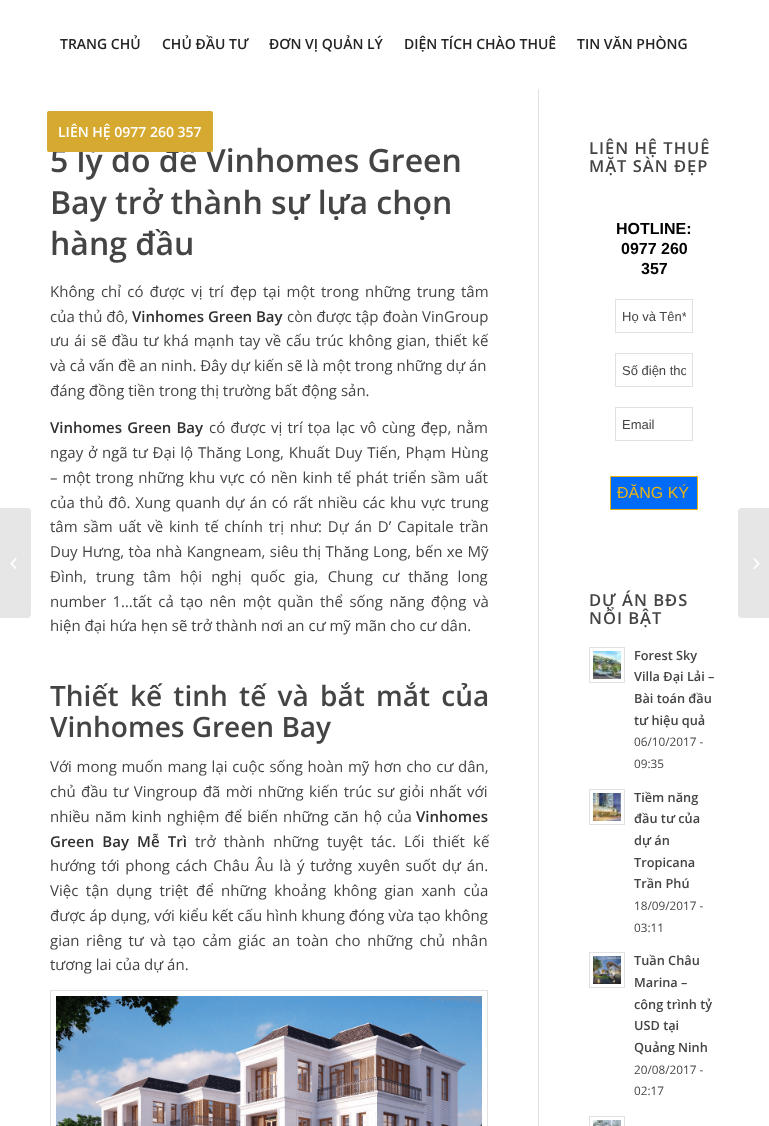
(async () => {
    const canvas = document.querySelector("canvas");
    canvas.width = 769;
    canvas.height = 1126;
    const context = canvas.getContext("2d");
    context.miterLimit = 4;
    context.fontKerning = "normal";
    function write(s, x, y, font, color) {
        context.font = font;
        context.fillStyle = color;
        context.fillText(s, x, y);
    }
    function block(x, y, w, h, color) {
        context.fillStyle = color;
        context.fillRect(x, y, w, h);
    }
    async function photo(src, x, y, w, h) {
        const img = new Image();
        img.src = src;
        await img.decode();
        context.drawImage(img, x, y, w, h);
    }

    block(0, 0, 769, 1126, "rgb(255, 255, 255)");
    write("TRANG CHỦ", 60, 49, "600 14px Open Sans", "rgb(36, 36, 36)");
    write("CHỦ ĐẦU TƯ", 162, 49, "600 14px Open Sans", "rgb(36, 36, 36)");
    write("ĐƠN VỊ QUẢN LÝ", 269, 49, "600 14px Open Sans", "rgb(36, 36, 36)");
    write("DIỆN TÍCH CHÀO THUÊ", 404, 49, "600 14px Open Sans", "rgb(36, 36, 36)");
    write("TIN VĂN PHÒNG", 577, 49, "600 14px Open Sans", "rgb(36, 36, 36)");
    write("5 lý do để Vinhomes Green", 50, 172, "600 32px Open Sans", "rgb(68, 68, 68)");
    context.fillStyle = "rgb(214, 170, 49)";
    context.beginPath();
    context.roundRect(48, 112, 164, 39, 1);
    context.fill();
    context.strokeStyle = "rgb(214, 170, 49)";
    context.lineWidth = 2;
    context.stroke();
    write("LIÊN HỆ 0977 260 357", 58, 137, "600 14px Open Sans", "rgb(255, 255, 255)");
    context.fillStyle = "rgb(230, 230, 230)";
    context.beginPath();
    context.roundRect(0, 508, 31, 110, [0, 4, 4, 0]);
    context.fill();
    await photo("media/1.png", 10, 558, 7, 11);
    block(538, 89, 1, 1037, "rgb(225, 225, 225)");
    write("Bay trở thành sự lựa chọn", 50, 214, "600 32px Open Sans", "rgb(68, 68, 68)");
    write("hàng đầu", 50, 255, "600 32px Open Sans", "rgb(68, 68, 68)");
    context.wordSpacing = "2.25px";
    write("Không chỉ có được vị trí đẹp tại một trong những trung tâm", 50, 297, "15px Open Sans", "rgb(68, 68, 68)");
    context.wordSpacing = "0px";
    write("của thủ đô,", 50, 322, "15px Open Sans", "rgb(68, 68, 68)");
    write("Vinhomes Green Bay", 132, 322, "600 15px Open Sans", "rgb(48, 48, 48)");
    write("còn được tập đoàn VinGroup", 287, 322, "15px Open Sans", "rgb(68, 68, 68)");
    context.wordSpacing = "1px";
    write("ưu ái sẽ đầu tư khá mạnh tay về cấu trúc không gian, thiết kế", 50, 346, "15px Open Sans", "rgb(68, 68, 68)");
    context.wordSpacing = "0px";
    write("và cả vấn đề an ninh. Đây dự kiến sẽ là một trong những dự án", 50, 371, "15px Open Sans", "rgb(68, 68, 68)");
    write("đáng đồng tiền trong thị trường bất động sản.", 50, 396, "15px Open Sans", "rgb(68, 68, 68)");
    context.wordSpacing = "1.25px";
    write("Vinhomes Green Bay", 50, 433, "600 15px Open Sans", "rgb(48, 48, 48)");
    write("có được vị trí tọa lạc vô cùng đẹp, nằm", 209, 433, "15px Open Sans", "rgb(68, 68, 68)");
    context.wordSpacing = "0.9px";
    write("ngay ở ngã tư Đại lộ Thăng Long, Khuất Duy Tiến, Phạm Hùng", 50, 458, "15px Open Sans", "rgb(68, 68, 68)");
    context.wordSpacing = "1px";
    write("– một trong những khu vực có nền kinh tế phát triển sầm uất", 50, 483, "15px Open Sans", "rgb(68, 68, 68)");
    write("của thủ đô. Xung quanh dự án có rất nhiều các khu vực trung", 50, 508, "15px Open Sans", "rgb(68, 68, 68)");
    context.wordSpacing = "1.9px";
    write("tâm sầm uất về kinh tế chính trị như: Dự án D’ Capitale trần", 50, 532, "15px Open Sans", "rgb(68, 68, 68)");
    context.wordSpacing = "0.5px";
    write("Duy Hưng, tòa nhà Kangneam, siêu thị Thăng Long, bến xe Mỹ", 50, 557, "15px Open Sans", "rgb(68, 68, 68)");
    context.wordSpacing = "5.25px";
    write("Đình, trung tâm hội nghị quốc gia, Chung cư thăng long", 50, 582, "15px Open Sans", "rgb(68, 68, 68)");
    context.wordSpacing = "2.6px";
    write("number 1…tất cả tạo nên một quần thể sống năng động và", 50, 607, "15px Open Sans", "rgb(68, 68, 68)");
    context.wordSpacing = "0px";
    write("hiện đại hứa hẹn sẽ trở thành nơi an cư mỹ mãn cho cư dân.", 50, 631, "15px Open Sans", "rgb(68, 68, 68)");
    context.wordSpacing = "4px";
    write("Thiết kế tinh tế và bắt mắt của", 50, 706, "600 28px Open Sans", "rgb(68, 68, 68)");
    context.wordSpacing = "0px";
    write("Vinhomes Green Bay", 50, 737, "600 28px Open Sans", "rgb(68, 68, 68)");
    context.wordSpacing = "0.75px";
    write("Với mong muốn mang lại cuộc sống hoàn mỹ hơn cho cư dân,", 50, 772, "15px Open Sans", "rgb(68, 68, 68)");
    context.wordSpacing = "1.5px";
    write("chủ đầu tư Vingroup đã mời những kiến trúc sư giỏi nhất với", 50, 797, "15px Open Sans", "rgb(68, 68, 68)");
    context.wordSpacing = "1.25px";
    write("nhiều năm kinh nghiệm để biến những căn hộ của", 50, 822, "15px Open Sans", "rgb(68, 68, 68)");
    context.wordSpacing = "0px";
    write("Vinhomes", 416, 822, "600 15px Open Sans", "rgb(48, 48, 48)");
    context.wordSpacing = "4.25px";
    write("Green Bay Mễ Trì", 50, 847, "600 15px Open Sans", "rgb(48, 48, 48)");
    write("trở thành những tuyệt tác. Lối thiết kế", 195, 847, "15px Open Sans", "rgb(68, 68, 68)");
    context.wordSpacing = "1.75px";
    write("hướng tới phong cách Châu Âu là ý tưởng xuyên suốt dự án.", 50, 871, "15px Open Sans", "rgb(68, 68, 68)");
    context.wordSpacing = "3.6px";
    write("Việc tận dụng triệt để những khoảng không gian xanh của", 50, 896, "15px Open Sans", "rgb(68, 68, 68)");
    context.wordSpacing = "0px";
    write("được áp dụng, với kiểu kết cấu hình khung đóng vừa tạo không", 50, 921, "15px Open Sans", "rgb(68, 68, 68)");
    context.wordSpacing = "2.75px";
    write("gian riêng tư và tạo cảm giác an toàn cho những chủ nhân", 50, 946, "15px Open Sans", "rgb(68, 68, 68)");
    context.wordSpacing = "0px";
    write("tương lai của dự án.", 50, 970, "15px Open Sans", "rgb(68, 68, 68)");
    context.strokeStyle = "rgb(225, 225, 225)";
    context.lineWidth = 1;
    context.strokeRect(50.5, 990.5, 437, 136);
    await photo("media/2.png", 56, 996, 426, 130);
    context.letterSpacing = "1px";
    write("LIÊN HỆ THUÊ", 589, 154, "600 16.5px Open Sans", "rgb(68, 68, 68)");
    write("MẶT SÀN ĐẸP", 589, 172, "600 16.5px Open Sans", "rgb(68, 68, 68)");
    context.letterSpacing = "0px";
    write("HOTLINE:", 616, 234, "bold 16px Liberation Sans", "rgb(0, 0, 0)");
    write("0977 260", 621, 254, "bold 16px Liberation Sans", "rgb(0, 0, 0)");
    write("357", 641, 274, "bold 16px Liberation Sans", "rgb(0, 0, 0)");
    context.strokeRect(615.5, 299.5, 77, 33);
    context.save();
    context.beginPath();
    context.rect(622, 309, 64, 15);
    context.clip();
    write("Họ và Tên*", 622, 321, "13px Liberation Sans", "rgb(68, 68, 68)");
    context.restore();
    context.strokeRect(615.5, 353.5, 77, 33);
    context.save();
    context.beginPath();
    context.rect(622, 363, 64, 15);
    context.clip();
    write("Số điện tho", 622, 375, "13px Liberation Sans", "rgb(68, 68, 68)");
    context.restore();
    context.strokeRect(615.5, 407.5, 77, 33);
    write("Email", 622, 429, "13px Liberation Sans", "rgb(68, 68, 68)");
    context.fillStyle = "rgb(0, 107, 247)";
    context.beginPath();
    context.rect(610.5, 476.5, 87, 33);
    context.fill();
    context.strokeStyle = "rgb(234, 179, 17)";
    context.stroke();
    write("ĐĂNG KÝ", 617, 498, "16px Liberation Sans", "rgb(234, 179, 17)");
    context.letterSpacing = "1px";
    write("DỰ ÁN BĐS", 589, 606, "600 16.5px Open Sans", "rgb(68, 68, 68)");
    write("NỔI BẬT", 589, 624, "600 16.5px Open Sans", "rgb(68, 68, 68)");
    context.strokeStyle = "rgb(225, 225, 225)";
    context.strokeRect(589.5, 647.5, 35, 35);
    await photo("media/3.png", 593, 651, 28, 28);
    context.letterSpacing = "0px";
    write("Forest Sky", 634, 660, "600 12.75px Open Sans", "rgb(68, 68, 68)");
    write("Villa Đại Lải –", 634, 681, "600 12.75px Open Sans", "rgb(68, 68, 68)");
    write("Bài toán đầu", 634, 703, "600 12.75px Open Sans", "rgb(68, 68, 68)");
    write("tư hiệu quả", 634, 725, "600 12.75px Open Sans", "rgb(68, 68, 68)");
    write("06/10/2017 -", 634, 746, "11.75px Open Sans", "rgb(68, 68, 68)");
    write("09:35", 634, 768, "11.75px Open Sans", "rgb(68, 68, 68)");
    context.strokeRect(589.5, 789.5, 35, 35);
    await photo("media/4.png", 593, 793, 28, 28);
    write("Tiềm năng", 634, 802, "600 12.75px Open Sans", "rgb(68, 68, 68)");
    write("đầu tư của", 634, 823, "600 12.75px Open Sans", "rgb(68, 68, 68)");
    write("dự án", 634, 845, "600 12.75px Open Sans", "rgb(68, 68, 68)");
    write("Tropicana", 634, 867, "600 12.75px Open Sans", "rgb(68, 68, 68)");
    write("Trần Phú", 634, 888, "600 12.75px Open Sans", "rgb(68, 68, 68)");
    write("18/09/2017 -", 634, 910, "11.75px Open Sans", "rgb(68, 68, 68)");
    write("03:11", 634, 932, "11.75px Open Sans", "rgb(68, 68, 68)");
    context.strokeRect(589.5, 952.5, 35, 35);
    await photo("media/5.png", 593, 956, 28, 28);
    write("Tuần Châu", 634, 965, "600 12.75px Open Sans", "rgb(68, 68, 68)");
    write("Marina –", 634, 987, "600 12.75px Open Sans", "rgb(68, 68, 68)");
    write("công trình tỷ", 634, 1009, "600 12.75px Open Sans", "rgb(68, 68, 68)");
    write("USD tại", 634, 1030, "600 12.75px Open Sans", "rgb(68, 68, 68)");
    write("Quảng Ninh", 634, 1052, "600 12.75px Open Sans", "rgb(68, 68, 68)");
    write("20/08/2017 -", 634, 1074, "11.75px Open Sans", "rgb(68, 68, 68)");
    write("02:17", 634, 1095, "11.75px Open Sans", "rgb(68, 68, 68)");
    context.strokeRect(589.5, 1116.5, 35, 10);
    await photo("media/6.png", 593, 1120, 28, 6);
    context.fillStyle = "rgb(230, 230, 230)";
    context.beginPath();
    context.roundRect(738, 508, 31, 110, [4, 0, 0, 4]);
    context.fill();
    await photo("media/7.png", 753, 558, 7, 11);
})();
